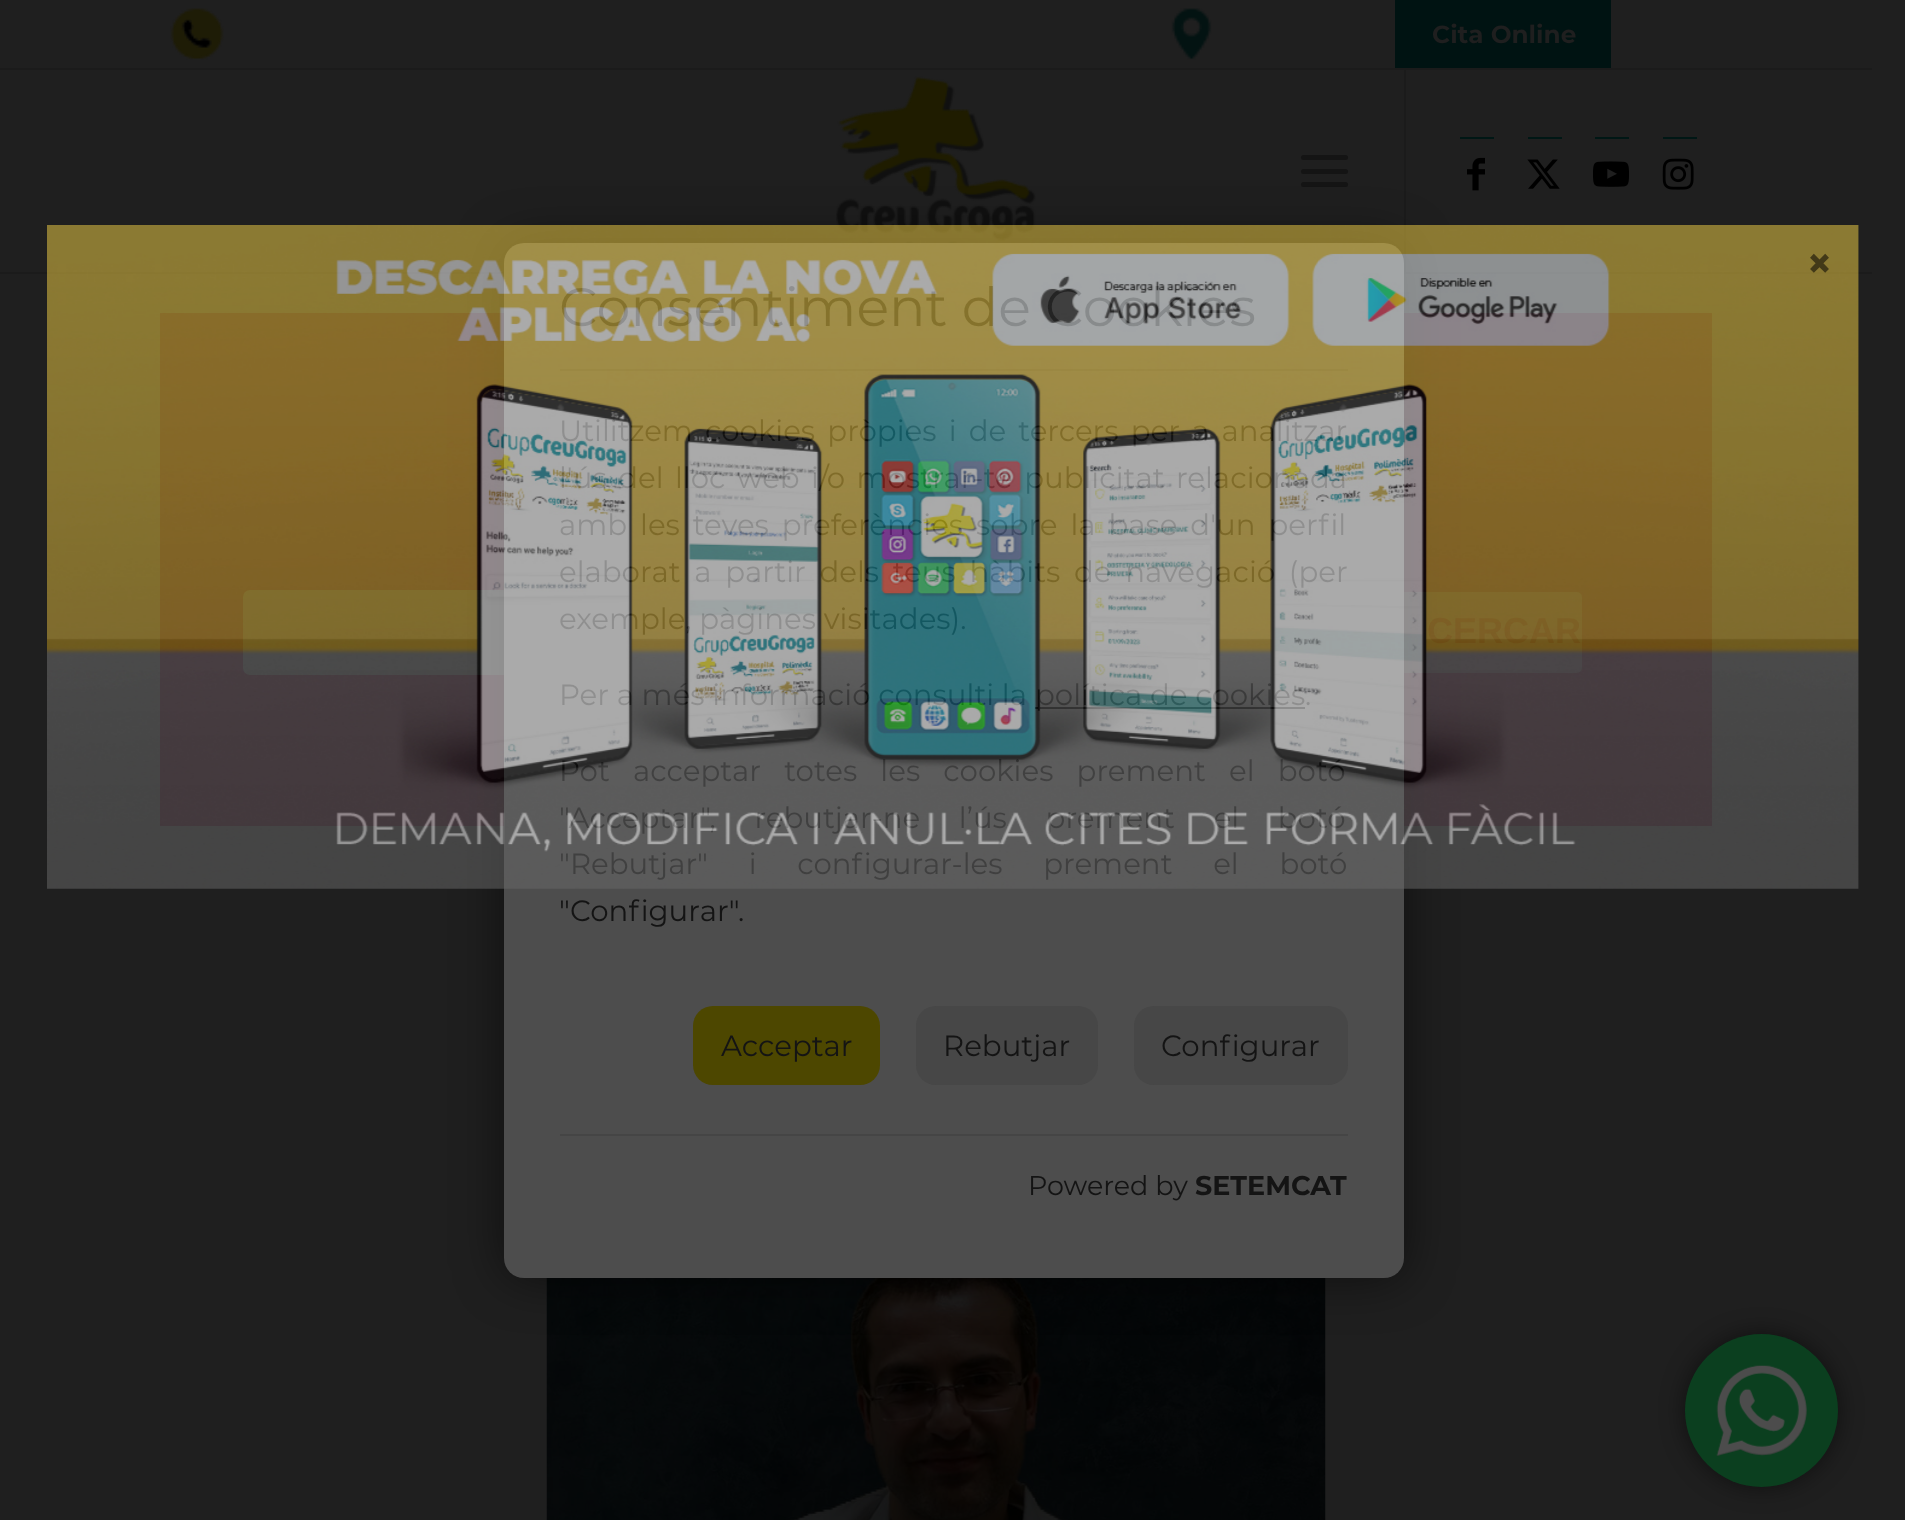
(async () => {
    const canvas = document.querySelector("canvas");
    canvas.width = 1905;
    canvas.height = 1520;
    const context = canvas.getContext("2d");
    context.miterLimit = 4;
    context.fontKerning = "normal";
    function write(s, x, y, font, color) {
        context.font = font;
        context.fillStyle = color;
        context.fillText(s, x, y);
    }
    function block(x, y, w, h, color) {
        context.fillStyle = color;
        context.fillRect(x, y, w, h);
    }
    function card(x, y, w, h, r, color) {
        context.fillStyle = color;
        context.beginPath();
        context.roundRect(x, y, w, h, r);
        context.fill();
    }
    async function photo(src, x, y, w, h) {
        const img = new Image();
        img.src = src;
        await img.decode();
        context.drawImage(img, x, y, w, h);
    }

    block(0, 0, 1905, 1520, "rgb(31, 31, 31)");
    block(0, 68, 1872, 2, "rgb(27, 27, 27)");
    await photo("media/1.png", 170, 8, 54, 52);
    await photo("media/2.png", 1171, 8, 41, 52);
    block(1395, 0, 216, 68, "rgb(0, 19, 18)");
    write("Cita Online", 1432, 43, "bold 24.75px Montserrat", "rgb(31, 31, 31)");
    block(0, 272, 1872, 2, "rgb(27, 27, 27)");
    await photo("media/3.png", 836, 76, 200, 167);
    block(1404, 70, 2, 202, "rgb(27, 27, 27)");
    card(1301, 169, 47, 5, 2.5, "rgb(20, 20, 20)");
    card(1301, 155, 47, 5, 2.5, "rgb(20, 20, 20)");
    card(1301, 182, 47, 5, 2.5, "rgb(20, 20, 20)");
    block(1460, 137, 34, 2, "rgb(0, 23, 21)");
    await photo("media/4.png", 1467, 157, 18, 34);
    block(1528, 137, 34, 2, "rgb(0, 23, 21)");
    await photo("media/5.png", 1527, 159, 33, 30);
    block(1595, 137, 34, 2, "rgb(0, 23, 21)");
    await photo("media/6.png", 1593, 161, 36, 26);
    block(1663, 137, 34, 2, "rgb(0, 23, 21)");
    await photo("media/7.png", 1662, 158, 32, 32);
    block(160, 313, 1552, 513, "rgb(27, 5, 14)");
    context.fillStyle = "rgb(31, 31, 31)";
    context.beginPath();
    context.roundRect(243, 590, 533, 85, [7, 0, 0, 7]);
    context.fill();
    context.fillStyle = "rgb(30, 23, 26)";
    context.beginPath();
    context.roundRect(1398, 591, 185, 83, [0, 6, 6, 0]);
    context.fill();
    context.strokeStyle = "rgb(27, 5, 14)";
    context.lineWidth = 2;
    context.stroke();
    write("CERCAR", 1427, 643, "bold 36px Liberation Sans", "rgb(27, 5, 14)");
    await photo("media/8.png", 546, 1278, 780, 242);
    context.fillStyle = "rgba(0, 0, 0, 0.54)";
    context.filter = "blur(25px)";
    context.beginPath();
    context.roundRect(504, 243, 900, 1035, 20);
    context.fill();
    context.filter = "none";
    card(504, 243, 900, 1035, 20, "rgb(77, 77, 77)");
    block(560, 369, 788, 2, "rgb(69, 69, 69)");
    write("Consentiment de Cookies", 559, 326, "54px Montserrat", "rgb(20, 20, 20)");
    context.wordSpacing = "4.5px";
    write("Utilitzem cookies pròpies i de tercers per a analitzar", 559, 441, "29.25px Montserrat", "rgb(20, 20, 20)");
    context.wordSpacing = "3.75px";
    write("l'ús del lloc web i/o mostrar-te publicitat relacionada", 559, 488, "29.25px Montserrat", "rgb(20, 20, 20)");
    context.wordSpacing = "5.25px";
    write("amb les teves preferències sobre la base d'un perfil", 559, 535, "29.25px Montserrat", "rgb(20, 20, 20)");
    context.wordSpacing = "6px";
    write("elaborat a partir dels teus hàbits de navegació (per", 559, 582, "29.25px Montserrat", "rgb(20, 20, 20)");
    context.wordSpacing = "0px";
    write("exemple, pàgines visitades).", 559, 629, "29.25px Montserrat", "rgb(20, 20, 20)");
    write("Per a més informació consulti la", 559, 705, "29.25px Montserrat", "rgb(20, 20, 20)");
    block(1035, 707, 270, 2, "rgb(15, 15, 15)");
    write("política de cookies", 1035, 705, "29.25px Montserrat", "rgb(20, 20, 20)");
    write(".", 1305, 705, "29.25px Montserrat", "rgb(20, 20, 20)");
    context.wordSpacing = "15.5px";
    write("Pot acceptar totes les cookies prement el botó", 559, 781, "29.25px Montserrat", "rgb(20, 20, 20)");
    context.wordSpacing = "31px";
    write("\"Acceptar\", rebutjar-ne l’ús prement el botó", 559, 828, "29.25px Montserrat", "rgb(20, 20, 20)");
    context.wordSpacing = "33px";
    write("\"Rebutjar\" i configurar-les prement el botó", 559, 874, "29.25px Montserrat", "rgb(20, 20, 20)");
    await photo("media/9.png", 47, 225, 1812, 664);
    context.wordSpacing = "0px";
    write("×", 1806, 279, "bold 45px Montserrat", "rgb(66, 57, 24)");
    write("\"Configurar\".", 559, 921, "29.25px Montserrat", "rgb(20, 20, 20)");
    card(693, 1006, 187, 79, 20, "rgb(77, 71, 0)");
    write("Acceptar", 721, 1056, "29.25px Montserrat", "rgb(20, 20, 20)");
    card(916, 1006, 182, 79, 20, "rgb(71, 71, 71)");
    write("Rebutjar", 943, 1056, "29.25px Montserrat", "rgb(20, 20, 20)");
    card(1134, 1006, 214, 79, 20, "rgb(71, 71, 71)");
    write("Configurar", 1161, 1056, "29.25px Montserrat", "rgb(20, 20, 20)");
    block(560, 1134, 788, 2, "rgb(69, 69, 69)");
    write("Powered by", 1028, 1195, "27px Montserrat", "rgb(20, 20, 20)");
    write("SETEMCAT", 1195, 1195, "bold 27px Montserrat", "rgb(20, 20, 20)");
    context.fillStyle = "rgba(0, 0, 0, 0.5)";
    context.filter = "blur(12.5px)";
    context.beginPath();
    context.roundRect(1685, 1334, 153, 153, 76.5);
    context.fill();
    context.filter = "none";
    context.fillStyle = "rgb(11, 63, 31)";
    context.beginPath();
    context.arc(1761.5, 1410.5, 76.5, 0, Math.PI * 2);
    context.fill();
    await photo("media/10.png", 1716, 1365, 91, 91);
})();
